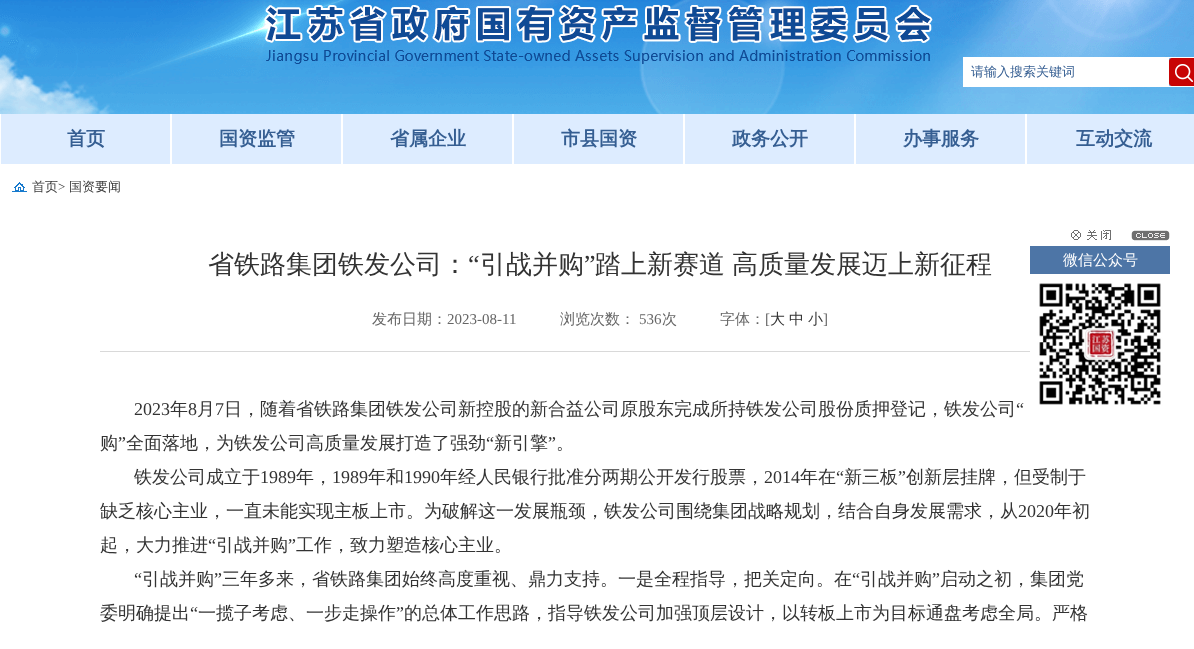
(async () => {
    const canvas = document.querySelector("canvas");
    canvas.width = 1194;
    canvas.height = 649;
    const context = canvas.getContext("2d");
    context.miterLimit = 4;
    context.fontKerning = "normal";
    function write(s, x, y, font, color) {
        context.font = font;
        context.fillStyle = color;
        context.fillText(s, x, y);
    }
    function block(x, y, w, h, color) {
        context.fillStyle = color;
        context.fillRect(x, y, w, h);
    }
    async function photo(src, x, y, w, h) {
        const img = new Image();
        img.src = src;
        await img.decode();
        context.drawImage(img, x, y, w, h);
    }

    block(0, 0, 1194, 649, "rgb(255, 255, 255)");
    await photo("media/1.png", 0, 0, 1194, 114);
    await photo("media/2.png", 264, 5, 669, 59);
    await photo("media/3.png", 1169, 57, 25, 30);
    block(963, 57, 206, 30, "rgb(255, 255, 255)");
    write("请输入搜索关键词", 971, 76, "500 13px WenQuanYi Zen Hei", "rgb(53, 94, 146)");
    await photo("media/4.png", 1169, 58, 25, 28);
    block(1, 114, 169, 50, "rgb(221, 236, 255)");
    write("首页", 67, 145, "bold 19px WenQuanYi Zen Hei", "rgb(53, 94, 146)");
    block(172, 114, 169, 50, "rgb(221, 236, 255)");
    write("国资监管", 219, 145, "bold 19px WenQuanYi Zen Hei", "rgb(53, 94, 146)");
    block(343, 114, 169, 50, "rgb(221, 236, 255)");
    write("省属企业", 390, 145, "bold 19px WenQuanYi Zen Hei", "rgb(53, 94, 146)");
    block(514, 114, 169, 50, "rgb(221, 236, 255)");
    write("市县国资", 561, 145, "bold 19px WenQuanYi Zen Hei", "rgb(53, 94, 146)");
    block(685, 114, 169, 50, "rgb(221, 236, 255)");
    write("政务公开", 732, 145, "bold 19px WenQuanYi Zen Hei", "rgb(53, 94, 146)");
    block(856, 114, 169, 50, "rgb(221, 236, 255)");
    write("办事服务", 903, 145, "bold 19px WenQuanYi Zen Hei", "rgb(53, 94, 146)");
    block(1027, 114, 167, 50, "rgb(221, 236, 255)");
    write("互动交流", 1076, 145, "bold 19px WenQuanYi Zen Hei", "rgb(53, 94, 146)");
    await photo("media/5.png", 12, 182, 15, 10);
    write("首页", 32, 191, "500 13px WenQuanYi Zen Hei", "rgb(61, 61, 61)");
    write(">", 58, 191, "13px Liberation Serif", "rgb(51, 51, 51)");
    write("国资要闻", 69, 191, "500 13px WenQuanYi Zen Hei", "rgb(61, 61, 61)");
    write("省铁路集团铁发公司：", 208, 273, "500 26px WenQuanYi Zen Hei", "rgb(51, 51, 51)");
    write("“", 468, 273, "26px Liberation Serif", "rgb(51, 51, 51)");
    write("引战并购", 480, 273, "500 26px WenQuanYi Zen Hei", "rgb(51, 51, 51)");
    write("”", 584, 273, "26px Liberation Serif", "rgb(51, 51, 51)");
    write("踏上新赛道", 595, 273, "500 26px WenQuanYi Zen Hei", "rgb(51, 51, 51)");
    write("高质量发展迈上新征程", 732, 273, "500 26px WenQuanYi Zen Hei", "rgb(51, 51, 51)");
    block(100, 351, 930, 1, "rgb(217, 217, 217)");
    write("发布日期：", 372, 324, "500 15px WenQuanYi Zen Hei", "rgb(102, 102, 102)");
    write("2023-08-11", 447, 324, "15px Liberation Serif", "rgb(102, 102, 102)");
    write("浏览次数：", 560, 324, "500 15px WenQuanYi Zen Hei", "rgb(102, 102, 102)");
    write("536", 639, 324, "15px Liberation Serif", "rgb(102, 102, 102)");
    write("次", 662, 324, "500 15px WenQuanYi Zen Hei", "rgb(102, 102, 102)");
    write("字体：", 720, 324, "500 15px WenQuanYi Zen Hei", "rgb(102, 102, 102)");
    write("[", 765, 324, "15px Liberation Serif", "rgb(102, 102, 102)");
    write("大", 770, 324, "500 15px WenQuanYi Zen Hei", "rgb(51, 51, 51)");
    write("中", 789, 324, "500 15px WenQuanYi Zen Hei", "rgb(51, 51, 51)");
    write("小", 808, 324, "500 15px WenQuanYi Zen Hei", "rgb(51, 51, 51)");
    write("]", 823, 324, "15px Liberation Serif", "rgb(102, 102, 102)");
    write("2023", 134, 415, "18px Liberation Serif", "rgb(51, 51, 51)");
    write("年", 170, 415, "500 18px WenQuanYi Zen Hei", "rgb(51, 51, 51)");
    write("8", 188, 415, "18px Liberation Serif", "rgb(51, 51, 51)");
    write("月", 197, 415, "500 18px WenQuanYi Zen Hei", "rgb(51, 51, 51)");
    write("7", 215, 415, "18px Liberation Serif", "rgb(51, 51, 51)");
    write("日，随着省铁路集团铁发公司新控股的新合益公司原股东完成所持铁发公司股份质押登记，铁发公司", 224, 415, "500 18px WenQuanYi Zen Hei", "rgb(51, 51, 51)");
    write("“", 1016, 415, "18px Liberation Serif", "rgb(51, 51, 51)");
    write("购", 100, 449, "500 18px WenQuanYi Zen Hei", "rgb(51, 51, 51)");
    write("”", 118, 449, "18px Liberation Serif", "rgb(51, 51, 51)");
    write("全面落地，为铁发公司高质量发展打造了强劲", 126, 449, "500 18px WenQuanYi Zen Hei", "rgb(51, 51, 51)");
    write("“", 486, 449, "18px Liberation Serif", "rgb(51, 51, 51)");
    write("新引擎", 494, 449, "500 18px WenQuanYi Zen Hei", "rgb(51, 51, 51)");
    write("”", 548, 449, "18px Liberation Serif", "rgb(51, 51, 51)");
    write("。", 556, 449, "500 18px WenQuanYi Zen Hei", "rgb(51, 51, 51)");
    write("铁发公司成立于", 134, 483, "500 18px WenQuanYi Zen Hei", "rgb(51, 51, 51)");
    write("1989", 260, 483, "18px Liberation Serif", "rgb(51, 51, 51)");
    write("年，", 296, 483, "500 18px WenQuanYi Zen Hei", "rgb(51, 51, 51)");
    write("1989", 332, 483, "18px Liberation Serif", "rgb(51, 51, 51)");
    write("年和", 368, 483, "500 18px WenQuanYi Zen Hei", "rgb(51, 51, 51)");
    write("1990", 404, 483, "18px Liberation Serif", "rgb(51, 51, 51)");
    write("年经人民银行批准分两期公开发行股票，", 440, 483, "500 18px WenQuanYi Zen Hei", "rgb(51, 51, 51)");
    write("2014", 764, 483, "18px Liberation Serif", "rgb(51, 51, 51)");
    write("年在", 800, 483, "500 18px WenQuanYi Zen Hei", "rgb(51, 51, 51)");
    write("“", 836, 483, "18px Liberation Serif", "rgb(51, 51, 51)");
    write("新三板", 844, 483, "500 18px WenQuanYi Zen Hei", "rgb(51, 51, 51)");
    write("”", 898, 483, "18px Liberation Serif", "rgb(51, 51, 51)");
    write("创新层挂牌，但受制于", 906, 483, "500 18px WenQuanYi Zen Hei", "rgb(51, 51, 51)");
    write("缺乏核心主业，一直未能实现主板上市。为破解这一发展瓶颈，铁发公司围绕集团战略规划，结合自身发展需求，从", 100, 517, "500 18px WenQuanYi Zen Hei", "rgb(51, 51, 51)");
    write("2020", 1018, 517, "18px Liberation Serif", "rgb(51, 51, 51)");
    write("年初", 1054, 517, "500 18px WenQuanYi Zen Hei", "rgb(51, 51, 51)");
    write("起，大力推进", 100, 551, "500 18px WenQuanYi Zen Hei", "rgb(51, 51, 51)");
    write("“", 208, 551, "18px Liberation Serif", "rgb(51, 51, 51)");
    write("引战并购", 216, 551, "500 18px WenQuanYi Zen Hei", "rgb(51, 51, 51)");
    write("”", 288, 551, "18px Liberation Serif", "rgb(51, 51, 51)");
    write("工作，致力塑造核心主业。", 296, 551, "500 18px WenQuanYi Zen Hei", "rgb(51, 51, 51)");
    write("“", 134, 585, "18px Liberation Serif", "rgb(51, 51, 51)");
    write("引战并购", 142, 585, "500 18px WenQuanYi Zen Hei", "rgb(51, 51, 51)");
    write("”", 214, 585, "18px Liberation Serif", "rgb(51, 51, 51)");
    write("三年多来，省铁路集团始终高度重视、鼎力支持。一是全程指导，把关定向。在", 222, 585, "500 18px WenQuanYi Zen Hei", "rgb(51, 51, 51)");
    write("“", 852, 585, "18px Liberation Serif", "rgb(51, 51, 51)");
    write("引战并购", 860, 585, "500 18px WenQuanYi Zen Hei", "rgb(51, 51, 51)");
    write("”", 932, 585, "18px Liberation Serif", "rgb(51, 51, 51)");
    write("启动之初，集团党", 940, 585, "500 18px WenQuanYi Zen Hei", "rgb(51, 51, 51)");
    write("委明确提出", 100, 619, "500 18px WenQuanYi Zen Hei", "rgb(51, 51, 51)");
    write("“", 190, 619, "18px Liberation Serif", "rgb(51, 51, 51)");
    write("一揽子考虑、一步走操作", 198, 619, "500 18px WenQuanYi Zen Hei", "rgb(51, 51, 51)");
    write("”", 396, 619, "18px Liberation Serif", "rgb(51, 51, 51)");
    write("的总体工作思路，指导铁发公司加强顶层设计，以转板上市为目标通盘考虑全局。严格", 404, 619, "500 18px WenQuanYi Zen Hei", "rgb(51, 51, 51)");
    block(1030, 246, 140, 28, "rgb(77, 117, 166)");
    await photo("media/6.png", 1071, 230, 99, 11);
    write("微信公众号", 1063, 265, "500 15px WenQuanYi Zen Hei", "rgb(255, 255, 255)");
    await photo("media/7.png", 1030, 274, 140, 140);
})();
